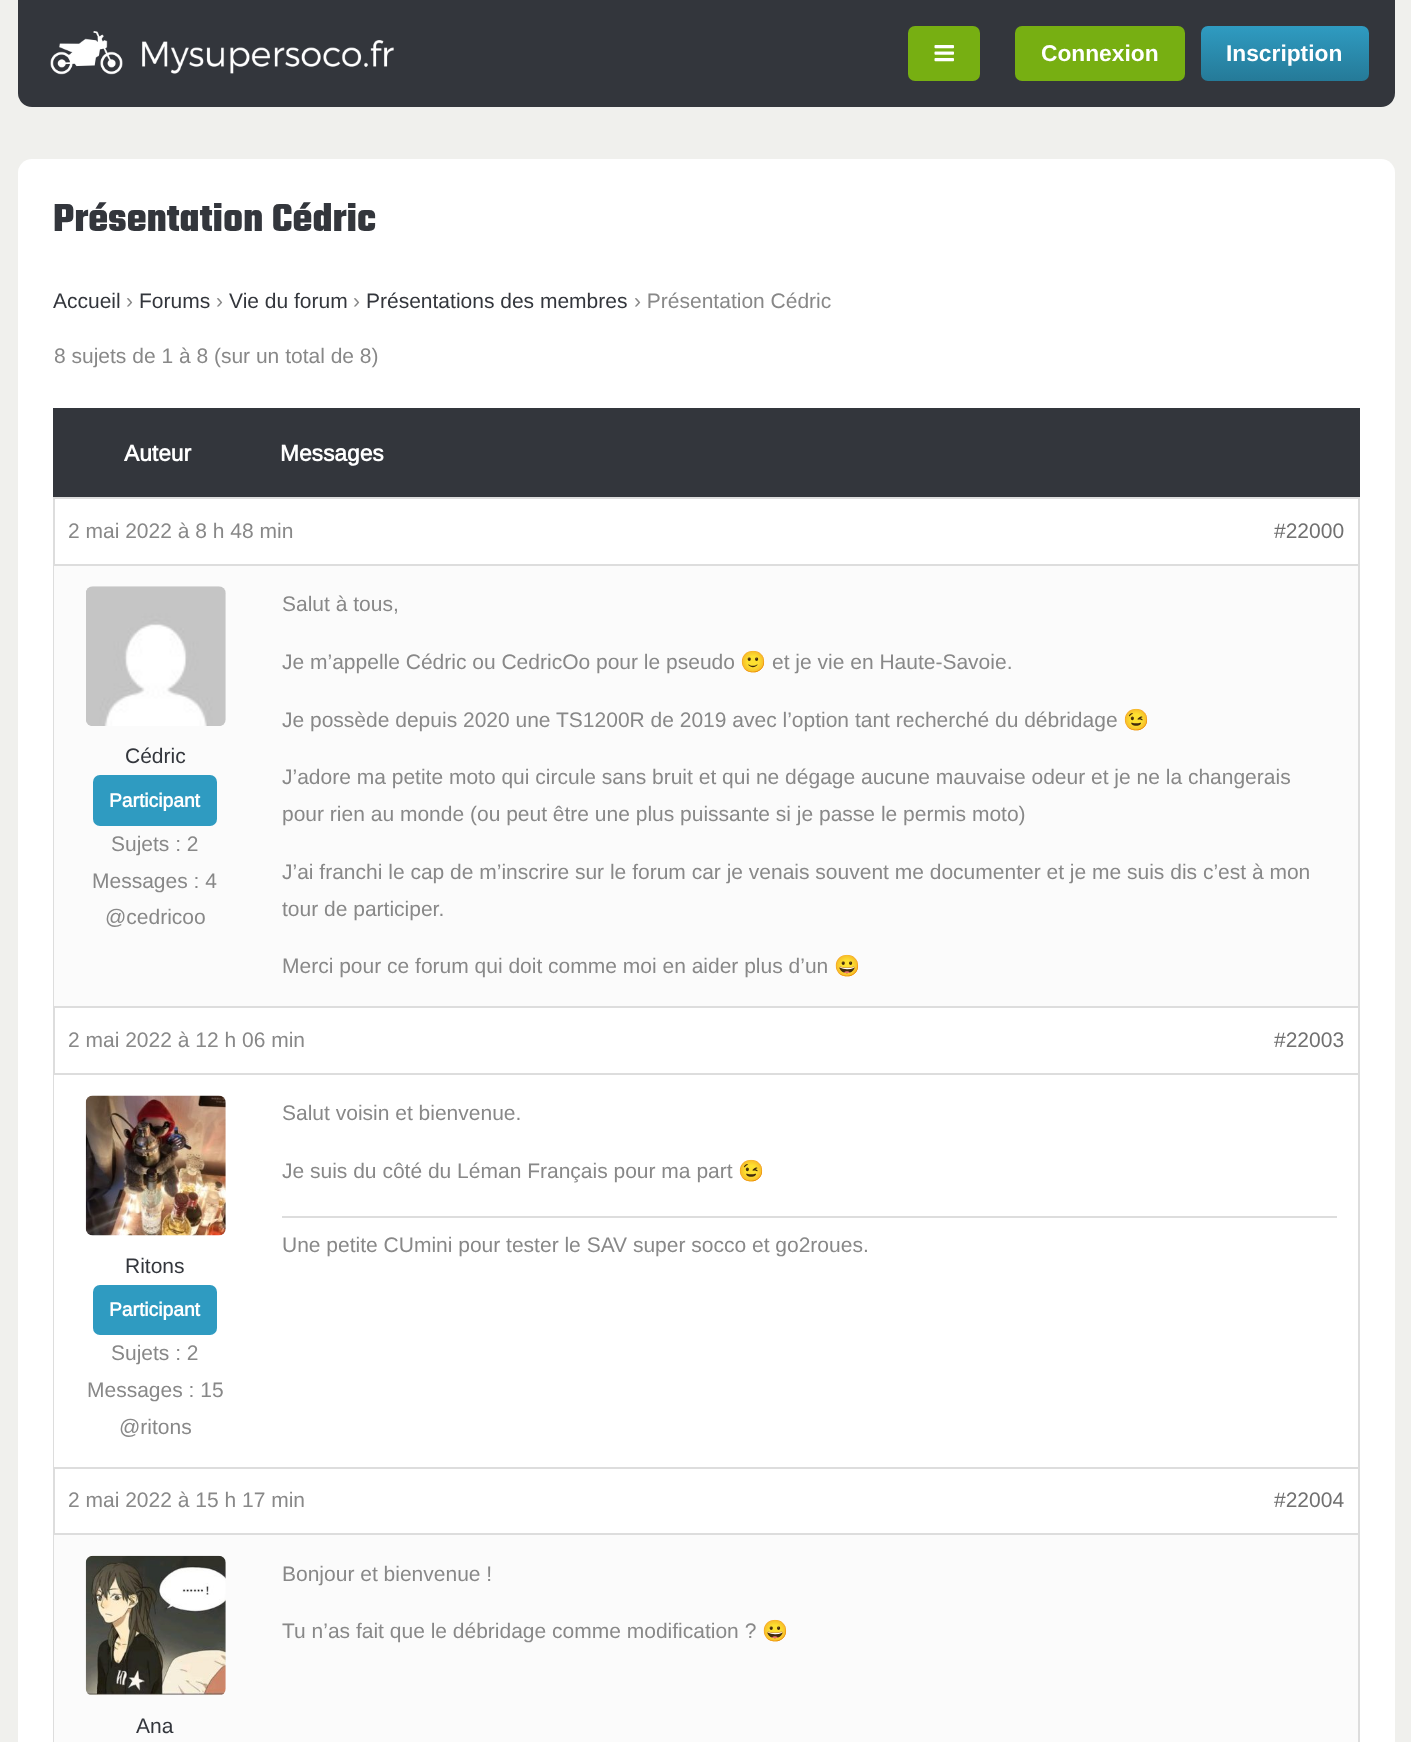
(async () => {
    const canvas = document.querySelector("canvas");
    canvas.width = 1411;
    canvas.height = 1742;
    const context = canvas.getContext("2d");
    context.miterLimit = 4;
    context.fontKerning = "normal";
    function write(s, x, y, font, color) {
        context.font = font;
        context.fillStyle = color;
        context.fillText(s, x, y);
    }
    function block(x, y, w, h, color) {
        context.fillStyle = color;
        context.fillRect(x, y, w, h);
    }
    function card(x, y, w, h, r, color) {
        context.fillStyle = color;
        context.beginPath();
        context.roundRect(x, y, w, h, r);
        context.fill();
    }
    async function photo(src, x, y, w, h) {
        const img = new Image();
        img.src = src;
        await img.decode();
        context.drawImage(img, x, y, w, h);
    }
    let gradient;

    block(0, 0, 1411, 1742, "rgb(240, 240, 237)");
    context.fillStyle = "rgb(51, 54, 60)";
    context.beginPath();
    context.roundRect(18, 0, 1377, 107, [0, 0, 14, 14]);
    context.fill();
    await photo("media/1.png", 50, 31, 344, 44);
    card(908, 26, 72, 55, 7, "rgb(119, 175, 18)");
    await photo("media/2.png", 934, 45, 20, 17);
    card(1015, 26, 170, 55, 7, "rgb(119, 175, 18)");
    write("Connexion", 1041, 61, "bold 22.75px Liberation Sans", "rgb(255, 255, 255)");
    gradient = context.createLinearGradient(1285, 26, 1285, 81);
    gradient.addColorStop(0, "rgb(47, 155, 193)");
    gradient.addColorStop(1, "rgb(37, 122, 152)");
    context.fillStyle = gradient;
    context.beginPath();
    context.roundRect(1201, 26, 168, 55, 7);
    context.fill();
    write("Inscription", 1226, 61, "bold 22.75px Liberation Sans", "rgb(255, 255, 255)");
    card(18, 159, 1377, 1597, 14, "rgb(255, 255, 255)");
    write("Présentation Cédric", 53, 231, "300 42px Teko", "rgb(51, 54, 60)");
    write("Accueil", 53, 308, "21px Arimo", "rgb(51, 54, 60)");
    write("›", 126, 308, "21px Arimo", "rgb(136, 136, 136)");
    write("Forums", 139, 308, "21px Arimo", "rgb(51, 54, 60)");
    write("›", 216, 308, "21px Arimo", "rgb(136, 136, 136)");
    write("Vie du forum", 229, 308, "21px Arimo", "rgb(51, 54, 60)");
    write("›", 353, 308, "21px Arimo", "rgb(136, 136, 136)");
    write("Présentations des membres", 366, 308, "21px Arimo", "rgb(51, 54, 60)");
    write("› Présentation Cédric", 634, 308, "21px Arimo", "rgb(136, 136, 136)");
    write("8 sujets de 1 à 8 (sur un total de 8)", 54, 363, "21px Arimo", "rgb(136, 136, 136)");
    block(53, 408, 1307, 89, "rgb(51, 54, 60)");
    write("Auteur", 124, 461, "bold 22.75px Arimo", "rgb(255, 255, 255)");
    write("Messages", 280, 461, "bold 22.75px Arimo", "rgb(255, 255, 255)");
    block(1358, 497, 2, 1245, "rgb(221, 221, 221)");
    block(53, 497, 2, 1245, "rgb(221, 221, 221)");
    block(54, 497, 1304, 2, "rgb(221, 221, 221)");
    block(54, 564, 1304, 2, "rgb(221, 221, 221)");
    write("2 mai 2022 à 8 h 48 min", 68, 538, "21px Arimo", "rgb(136, 136, 136)");
    write("#22000", 1274, 538, "21px Arimo", "rgb(112, 112, 112)");
    block(54, 566, 1304, 440, "rgb(251, 251, 251)");
    await photo("media/3.png", 86, 586, 140, 140);
    write("Cédric", 125, 763, "21px Arimo", "rgb(51, 54, 60)");
    card(93, 775, 124, 51, 7, "rgb(47, 155, 193)");
    write("Participant", 109, 807, "bold 19.25px Arimo", "rgb(255, 255, 255)");
    write("Sujets : 2", 111, 851, "21px Arimo", "rgb(136, 136, 136)");
    write("Messages : 4", 92, 888, "21px Arimo", "rgb(136, 136, 136)");
    write("@cedricoo", 105, 924, "21px Arimo", "rgb(136, 136, 136)");
    write("Salut à tous,", 282, 611, "21px Arimo", "rgb(136, 136, 136)");
    write("Je m’appelle Cédric ou CedricOo pour le pseudo", 282, 669, "21px Arimo", "rgb(136, 136, 136)");
    write("🙂", 740, 669, "21px Noto Color Emoji", "rgb(136, 136, 136)");
    write("et je vie en Haute-Savoie.", 772, 669, "21px Arimo", "rgb(136, 136, 136)");
    write("Je possède depuis 2020 une TS1200R de 2019 avec l’option tant recherché du débridage", 282, 727, "21px Arimo", "rgb(136, 136, 136)");
    write("😉", 1123, 727, "21px Noto Color Emoji", "rgb(136, 136, 136)");
    write("J’adore ma petite moto qui circule sans bruit et qui ne dégage aucune mauvaise odeur et je ne la changerais", 282, 784, "21px Arimo", "rgb(136, 136, 136)");
    write("pour rien au monde (ou peut être une plus puissante si je passe le permis moto)", 282, 821, "21px Arimo", "rgb(136, 136, 136)");
    write("J’ai franchi le cap de m’inscrire sur le forum car je venais souvent me documenter et je me suis dis c’est à mon", 282, 879, "21px Arimo", "rgb(136, 136, 136)");
    write("tour de participer.", 282, 916, "21px Arimo", "rgb(136, 136, 136)");
    write("Merci pour ce forum qui doit comme moi en aider plus d’un", 282, 973, "21px Arimo", "rgb(136, 136, 136)");
    write("😀", 834, 973, "21px Noto Color Emoji", "rgb(136, 136, 136)");
    block(54, 1006, 1304, 2, "rgb(221, 221, 221)");
    block(54, 1073, 1304, 2, "rgb(221, 221, 221)");
    write("2 mai 2022 à 12 h 06 min", 68, 1047, "21px Arimo", "rgb(136, 136, 136)");
    write("#22003", 1274, 1047, "21px Arimo", "rgb(112, 112, 112)");
    block(54, 1075, 1, 392, "rgb(255, 255, 255)");
    write("Salut voisin et bienvenue.", 282, 1120, "21px Arimo", "rgb(136, 136, 136)");
    write("Je suis du côté du Léman Français pour ma part", 282, 1178, "21px Arimo", "rgb(136, 136, 136)");
    write("😉", 738, 1178, "21px Noto Color Emoji", "rgb(136, 136, 136)");
    block(282, 1216, 1055, 2, "rgb(221, 221, 221)");
    write("Une petite CUmini pour tester le SAV super socco et go2roues.", 282, 1252, "21px Arimo", "rgb(136, 136, 136)");
    await photo("media/4.png", 85, 1095, 141, 141);
    write("Ritons", 125, 1273, "21px Arimo", "rgb(51, 54, 60)");
    card(93, 1285, 124, 50, 7, "rgb(47, 155, 193)");
    write("Participant", 109, 1316, "bold 19.25px Arimo", "rgb(255, 255, 255)");
    write("Sujets : 2", 111, 1360, "21px Arimo", "rgb(136, 136, 136)");
    write("Messages : 15", 87, 1397, "21px Arimo", "rgb(136, 136, 136)");
    write("@ritons", 119, 1434, "21px Arimo", "rgb(136, 136, 136)");
    block(54, 1467, 1304, 2, "rgb(221, 221, 221)");
    block(54, 1533, 1304, 2, "rgb(221, 221, 221)");
    write("2 mai 2022 à 15 h 17 min", 68, 1507, "21px Arimo", "rgb(136, 136, 136)");
    write("#22004", 1274, 1507, "21px Arimo", "rgb(112, 112, 112)");
    block(54, 1535, 1304, 207, "rgb(251, 251, 251)");
    write("Bonjour et bienvenue !", 282, 1581, "21px Arimo", "rgb(136, 136, 136)");
    write("Tu n’as fait que le débridage comme modification ?", 282, 1638, "21px Arimo", "rgb(136, 136, 136)");
    write("😀", 762, 1638, "21px Noto Color Emoji", "rgb(136, 136, 136)");
    await photo("media/5.png", 85, 1555, 141, 141);
    write("Ana", 136, 1733, "21px Arimo", "rgb(51, 54, 60)");
})();
